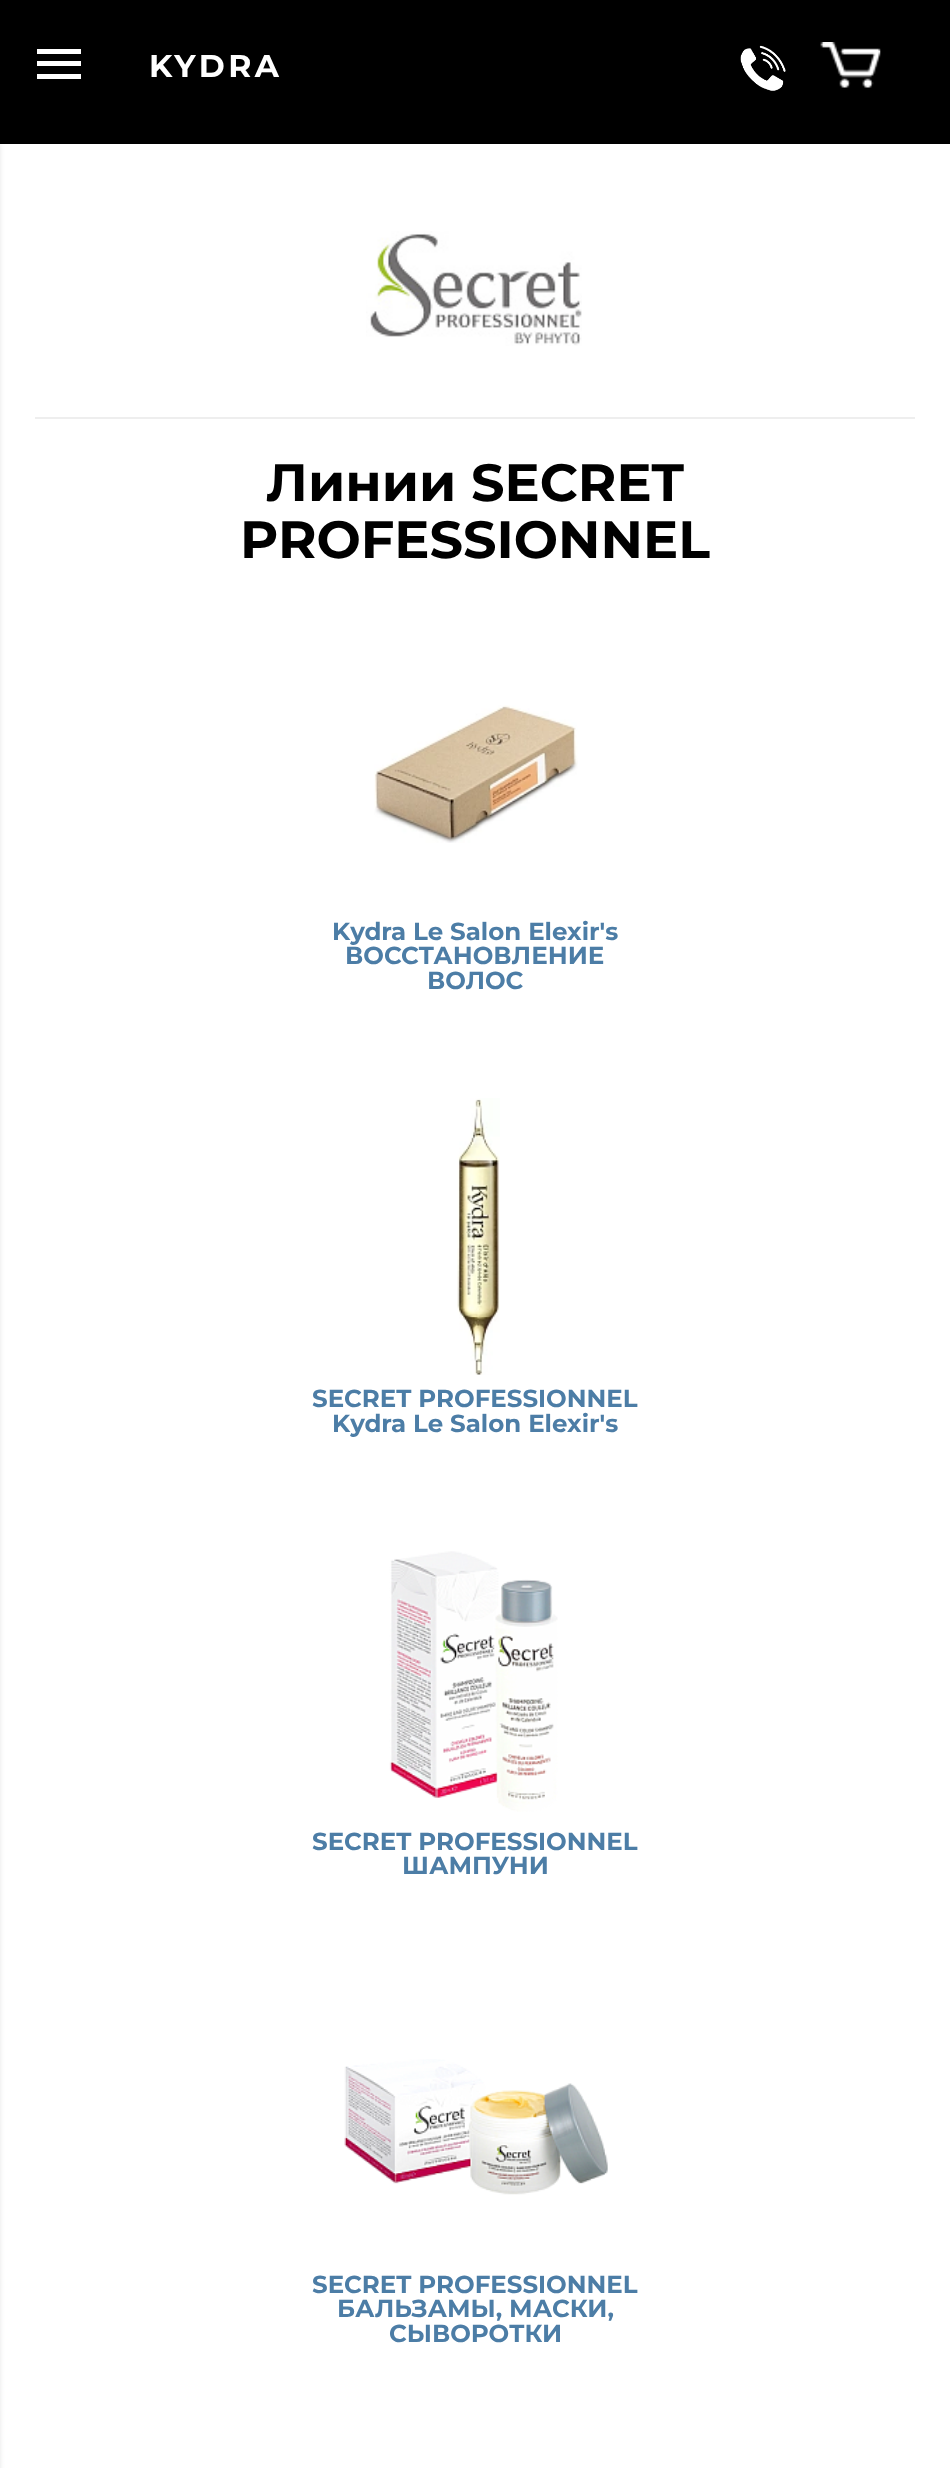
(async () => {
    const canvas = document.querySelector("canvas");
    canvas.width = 950;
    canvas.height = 2468;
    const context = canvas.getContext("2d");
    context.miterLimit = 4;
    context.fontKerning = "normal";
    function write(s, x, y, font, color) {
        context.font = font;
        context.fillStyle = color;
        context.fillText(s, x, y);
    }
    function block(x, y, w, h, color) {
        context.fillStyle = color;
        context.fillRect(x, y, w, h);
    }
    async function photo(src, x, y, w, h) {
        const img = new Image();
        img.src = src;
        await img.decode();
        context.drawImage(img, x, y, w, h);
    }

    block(0, 0, 950, 2468, "rgb(255, 255, 255)");
    context.fillStyle = "rgba(0, 0, 0, 0.1)";
    context.filter = "blur(2.5px)";
    context.beginPath();
    context.rect(-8, 144, 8, 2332);
    context.fill();
    context.filter = "none";
    block(0, 0, 950, 144, "rgb(0, 0, 0)");
    block(37, 61, 44, 5, "rgb(255, 255, 255)");
    block(37, 49, 44, 5, "rgb(255, 255, 255)");
    block(37, 74, 44, 5, "rgb(255, 255, 255)");
    context.letterSpacing = "3.5px";
    write("KYDRA", 149, 77, "bold 31.5px Montserrat", "rgb(255, 255, 255)");
    await photo("media/1.png", 740, 45, 46, 46);
    await photo("media/2.png", 820, 42, 61, 46);
    await photo("media/3.png", 366, 231, 216, 115);
    block(35, 417, 880, 2, "rgb(238, 238, 238)");
    context.letterSpacing = "0px";
    write("Линии SECRET", 266, 501, "bold 52.5px Montserrat", "rgb(0, 0, 0)");
    write("PROFESSIONNEL", 240, 558, "bold 52.5px Montserrat", "rgb(0, 0, 0)");
    await photo("media/4.png", 374, 705, 204, 138);
    write("Kydra Le Salon Elexir's", 332, 940, "bold 24.5px Montserrat", "rgb(76, 125, 166)");
    write("ВОССТАНОВЛЕНИЕ", 345, 964, "bold 24.5px Montserrat", "rgb(76, 125, 166)");
    write("ВОЛОС", 427, 989, "bold 24.5px Montserrat", "rgb(76, 125, 166)");
    await photo("media/5.png", 457, 1098, 43, 277);
    write("SECRET PROFESSIONNEL", 312, 1407, "bold 24.5px Montserrat", "rgb(76, 125, 166)");
    write("Kydra Le Salon Elexir's", 332, 1432, "bold 24.5px Montserrat", "rgb(76, 125, 166)");
    await photo("media/6.png", 389, 1551, 169, 261);
    write("SECRET PROFESSIONNEL", 312, 1850, "bold 24.5px Montserrat", "rgb(76, 125, 166)");
    write("ШАМПУНИ", 402, 1874, "bold 24.5px Montserrat", "rgb(76, 125, 166)");
    await photo("media/7.png", 344, 2059, 264, 136);
    write("SECRET PROFESSIONNEL", 312, 2293, "bold 24.5px Montserrat", "rgb(76, 125, 166)");
    write("БАЛЬЗАМЫ, МАСКИ,", 337, 2317, "bold 24.5px Montserrat", "rgb(76, 125, 166)");
    write("СЫВОРОТКИ", 389, 2342, "bold 24.5px Montserrat", "rgb(76, 125, 166)");
})();
